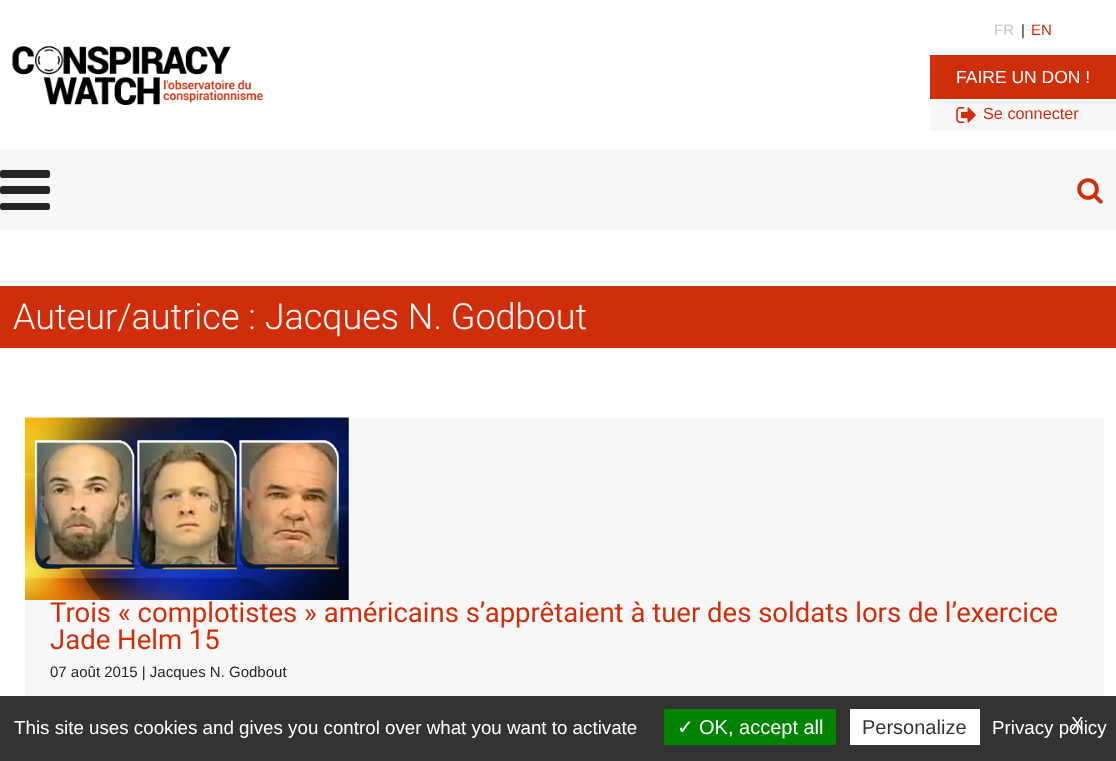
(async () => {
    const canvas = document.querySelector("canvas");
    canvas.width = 1116;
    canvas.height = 761;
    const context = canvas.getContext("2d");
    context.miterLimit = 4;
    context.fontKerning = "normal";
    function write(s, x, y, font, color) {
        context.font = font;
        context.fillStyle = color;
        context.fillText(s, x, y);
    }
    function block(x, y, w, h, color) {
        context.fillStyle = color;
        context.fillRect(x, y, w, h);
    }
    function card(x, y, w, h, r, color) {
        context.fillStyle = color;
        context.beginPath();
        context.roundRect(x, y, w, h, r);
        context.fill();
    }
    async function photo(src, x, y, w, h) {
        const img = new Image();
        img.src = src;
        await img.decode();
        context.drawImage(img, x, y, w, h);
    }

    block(0, 0, 1116, 761, "rgb(255, 255, 255)");
    await photo("media/1.png", 12, 46, 251, 59);
    write("FR", 994, 35, "15px Liberation Sans", "rgb(196, 196, 196)");
    write("|", 1021, 35, "15px Liberation Sans", "rgb(37, 37, 37)");
    write("EN", 1031, 35, "15px Liberation Sans", "rgb(206, 46, 10)");
    block(930, 55, 186, 44, "rgb(206, 46, 10)");
    write("FAIRE UN DON !", 956, 83, "17.5px Liberation Sans", "rgb(255, 255, 255)");
    block(930, 99, 186, 32, "rgb(247, 247, 247)");
    await photo("media/2.png", 956, 106, 20, 18);
    write("Se connecter", 983, 119, "16.25px Liberation Sans", "rgb(206, 46, 10)");
    block(0, 150, 1116, 80, "rgb(247, 247, 247)");
    card(0, 170, 50, 8, 2.5, "rgb(37, 37, 37)");
    card(0, 186, 50, 8, 2.5, "rgb(37, 37, 37)");
    card(0, 203, 50, 7, 2.5, "rgb(37, 37, 37)");
    await photo("media/3.png", 1077, 178, 26, 26);
    block(0, 286, 1116, 62, "rgb(206, 46, 10)");
    write("Auteur/autrice : Jacques N. Godbout", 13, 329, "300 36px Roboto", "rgb(247, 247, 247)");
    block(25, 418, 1079, 278, "rgb(247, 247, 247)");
    await photo("media/4.png", 25, 417, 324, 183);
    write("Trois « complotistes » américains s’apprêtaient à tuer des soldats lors de l’exercice", 50, 622, "27.5px Roboto", "rgb(206, 46, 10)");
    write("Jade Helm 15", 50, 649, "27.5px Roboto", "rgb(206, 46, 10)");
    write("07 août 2015 | Jacques N. Godbout", 50, 677, "15px Liberation Sans", "rgb(37, 37, 37)");
    block(0, 696, 1116, 65, "rgb(51, 51, 51)");
    write("This site uses cookies and gives you control over what you want to activate", 14, 734, "18.75px Liberation Sans", "rgb(255, 255, 255)");
    block(664, 709, 172, 36, "rgb(0, 131, 0)");
    write("✓", 677, 734, "20px DejaVu Sans", "rgb(255, 255, 255)");
    write("OK, accept all", 699, 734, "20px Liberation Sans", "rgb(255, 255, 255)");
    block(850, 709, 130, 36, "rgb(255, 255, 255)");
    write("Personalize", 862, 734, "20px Liberation Sans", "rgb(51, 51, 51)");
    write("Privacy policy", 992, 734, "18.75px Liberation Sans", "rgb(255, 255, 255)");
    write("X", 1071, 730, "18.75px Liberation Sans", "rgb(255, 255, 255)");
})();
